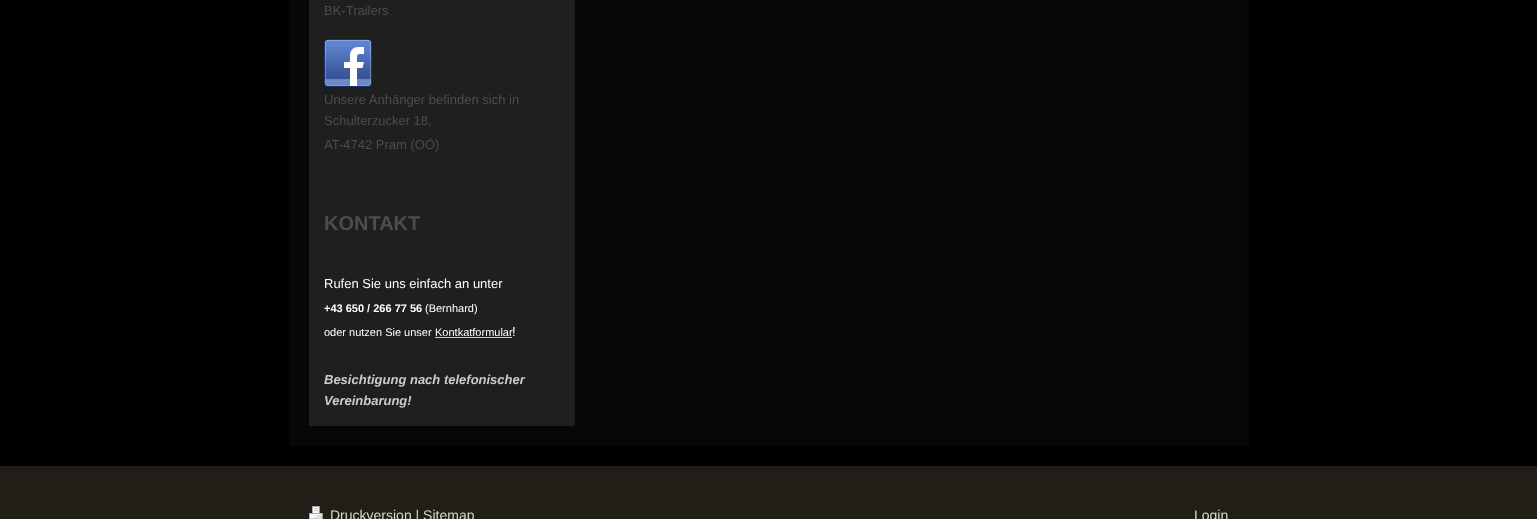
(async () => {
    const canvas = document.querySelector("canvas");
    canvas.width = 1537;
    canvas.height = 519;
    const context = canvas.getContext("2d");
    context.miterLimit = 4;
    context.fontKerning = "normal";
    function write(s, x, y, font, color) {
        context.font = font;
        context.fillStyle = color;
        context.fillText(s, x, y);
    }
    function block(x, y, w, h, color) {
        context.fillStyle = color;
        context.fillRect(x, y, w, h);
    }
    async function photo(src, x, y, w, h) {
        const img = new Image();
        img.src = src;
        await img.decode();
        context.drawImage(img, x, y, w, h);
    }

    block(0, 0, 1537, 519, "rgb(0, 0, 0)");
    block(289, 0, 960, 446, "rgb(7, 7, 7)");
    block(309, 0, 266, 426, "rgb(31, 31, 31)");
    write("BK-Trailers", 324, 15, "13px Liberation Sans", "rgb(77, 77, 77)");
    await photo("media/1.png", 324, 39, 48, 48);
    write("Unsere Anhänger befinden sich in", 324, 104, "13px Liberation Sans", "rgb(77, 77, 77)");
    write("Schulterzucker 18,", 324, 125, "13px Liberation Sans", "rgb(77, 77, 77)");
    write("AT-4742 Pram (OÖ)", 324, 149, "13px Liberation Sans", "rgb(77, 77, 77)");
    write("KONTAKT", 324, 230, "bold 20px Liberation Sans", "rgb(77, 77, 77)");
    write("Rufen Sie uns einfach an unter", 324, 288, "13px Liberation Sans", "rgb(255, 255, 255)");
    write("+43 650 / 266 77 56", 324, 312, "bold 11px Liberation Sans", "rgb(255, 255, 255)");
    write("(Bernhard)", 425, 312, "11px Liberation Sans", "rgb(255, 255, 255)");
    write("oder nutzen Sie unser", 324, 336, "11px Liberation Sans", "rgb(255, 255, 255)");
    write("Kontkatformular", 435, 336, "11px Liberation Sans", "rgb(255, 255, 255)");
    block(435, 337, 77, 1, "rgb(203, 203, 203)");
    write("!", 512, 336, "13px Liberation Sans", "rgb(255, 255, 255)");
    write("Besichtigung nach telefonischer", 324, 384, "italic bold 13px Liberation Sans", "rgb(204, 204, 204)");
    write("Vereinbarung!", 324, 405, "italic bold 13px Liberation Sans", "rgb(204, 204, 204)");
    block(0, 466, 1537, 53, "rgb(33, 30, 24)");
    await photo("media/2.png", 309, 506, 14, 13);
    write("Druckversion | Sitemap", 330, 520, "14px Liberation Sans", "rgb(216, 213, 208)");
    write("Login", 1194, 520, "14px Liberation Sans", "rgb(216, 213, 208)");
})();
